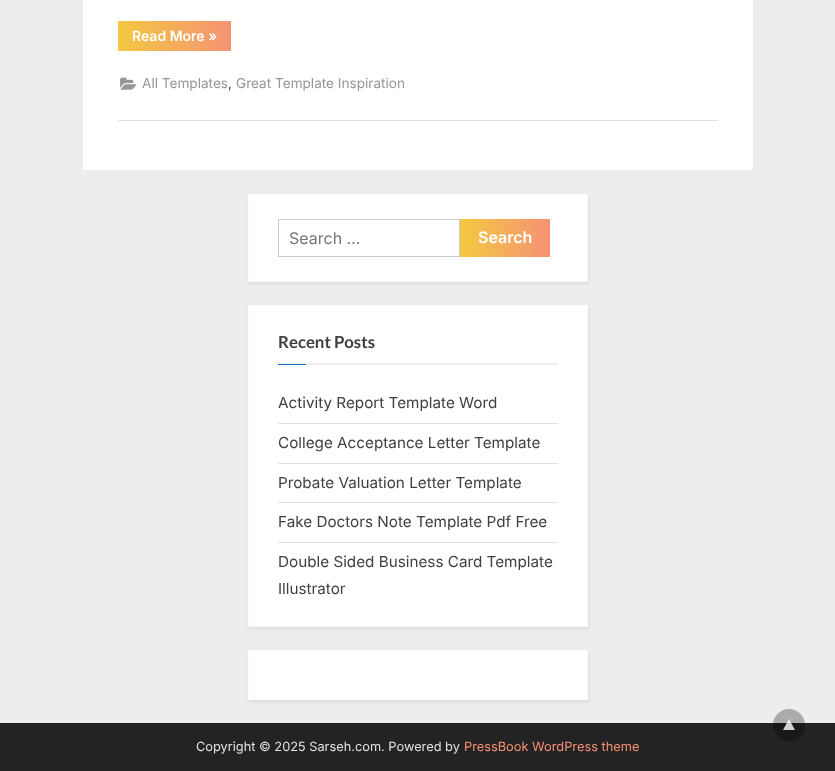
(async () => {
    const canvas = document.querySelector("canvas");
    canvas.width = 835;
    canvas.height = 771;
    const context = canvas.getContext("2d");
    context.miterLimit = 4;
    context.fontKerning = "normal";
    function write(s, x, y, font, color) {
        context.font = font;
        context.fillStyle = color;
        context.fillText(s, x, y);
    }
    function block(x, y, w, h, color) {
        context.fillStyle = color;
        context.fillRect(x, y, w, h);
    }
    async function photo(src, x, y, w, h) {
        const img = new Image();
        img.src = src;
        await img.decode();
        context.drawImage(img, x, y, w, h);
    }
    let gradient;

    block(0, 0, 835, 771, "rgb(237, 237, 237)");
    block(83, 0, 670, 170, "rgb(255, 255, 255)");
    block(118, 120, 600, 1, "rgb(225, 225, 225)");
    gradient = context.createLinearGradient(118, 36, 344, 36);
    gradient.addColorStop(0, "rgb(243, 200, 65)");
    gradient.addColorStop(0.51, "rgb(246, 146, 117)");
    gradient.addColorStop(1, "rgb(243, 200, 65)");
    context.fillStyle = gradient;
    context.fillRect(118, 21, 113, 30);
    write("Read More »", 132, 41, "600 14px Inter", "rgb(255, 255, 255)");
    await photo("media/1.png", 120, 77, 17, 13);
    write("All Templates", 142, 88, "13.6px Inter", "rgb(151, 151, 151)");
    write(",", 228, 88, "13.6px Inter", "rgb(64, 64, 64)");
    write("Great Template Inspiration", 236, 88, "13.6px Inter", "rgb(151, 151, 151)");
    context.fillStyle = "rgba(0, 0, 0, 0.07)";
    context.filter = "blur(1.5px)";
    context.beginPath();
    context.rect(249, 196, 340, 88);
    context.fill();
    context.filter = "none";
    context.fillStyle = "rgb(255, 255, 255)";
    context.beginPath();
    context.rect(248.5, 194.5, 339, 87);
    context.fill();
    context.strokeStyle = "rgb(250, 250, 250)";
    context.stroke();
    context.strokeStyle = "rgb(204, 204, 204)";
    context.strokeRect(278.5, 219.5, 181, 37);
    write("Search …", 289, 244, "16px Inter", "rgb(117, 117, 117)");
    gradient = context.createLinearGradient(290, 238, 462, 238);
    gradient.addColorStop(0, "rgb(243, 200, 65)");
    gradient.addColorStop(0.51, "rgb(246, 146, 117)");
    gradient.addColorStop(1, "rgb(243, 200, 65)");
    context.fillStyle = gradient;
    context.fillRect(460, 219, 2, 38);
    gradient = context.createLinearGradient(462, 238, 634, 238);
    gradient.addColorStop(0, "rgb(243, 200, 65)");
    gradient.addColorStop(0.51, "rgb(246, 146, 117)");
    gradient.addColorStop(1, "rgb(243, 200, 65)");
    context.fillStyle = gradient;
    context.fillRect(462, 219, 88, 38);
    write("Search", 478, 243, "600 16px Inter", "rgb(255, 255, 255)");
    context.fillStyle = "rgba(0, 0, 0, 0.07)";
    context.filter = "blur(1.5px)";
    context.beginPath();
    context.rect(249, 307, 340, 322);
    context.fill();
    context.filter = "none";
    context.fillStyle = "rgb(255, 255, 255)";
    context.beginPath();
    context.rect(248.5, 305.5, 339, 321);
    context.fill();
    context.strokeStyle = "rgb(250, 250, 250)";
    context.stroke();
    block(278, 363, 280, 2, "rgb(238, 238, 238)");
    write("Recent Posts", 278, 348, "bold 16.75px Lato", "rgb(64, 64, 64)");
    block(278, 364, 28, 1, "rgb(22, 109, 214)");
    block(278, 423, 280, 1, "rgb(225, 225, 225)");
    write("Activity Report Template Word", 278, 408, "15.25px Inter", "rgb(64, 64, 64)");
    block(278, 463, 280, 1, "rgb(225, 225, 225)");
    write("College Acceptance Letter Template", 278, 448, "15.25px Inter", "rgb(64, 64, 64)");
    block(278, 502, 280, 1, "rgb(225, 225, 225)");
    write("Probate Valuation Letter Template", 278, 488, "15.25px Inter", "rgb(64, 64, 64)");
    block(278, 542, 280, 1, "rgb(225, 225, 225)");
    write("Fake Doctors Note Template Pdf Free", 278, 527, "15.25px Inter", "rgb(64, 64, 64)");
    write("Double Sided Business Card Template", 278, 567, "15.25px Inter", "rgb(64, 64, 64)");
    write("Illustrator", 278, 594, "15.25px Inter", "rgb(64, 64, 64)");
    context.fillStyle = "rgba(0, 0, 0, 0.07)";
    context.filter = "blur(1.5px)";
    context.beginPath();
    context.rect(249, 652, 340, 50);
    context.fill();
    context.filter = "none";
    context.fillStyle = "rgb(255, 255, 255)";
    context.beginPath();
    context.rect(248.5, 650.5, 339, 49);
    context.fill();
    context.stroke();
    block(0, 723, 835, 48, "rgb(35, 35, 35)");
    context.fillStyle = "rgba(0, 0, 0, 0.28)";
    context.beginPath();
    context.arc(789, 725, 16, 0, Math.PI * 2);
    context.fill();
    context.fillStyle = "rgba(255, 255, 255, 0.8)";
    context.beginPath();
    context.moveTo(795, 730);
    context.lineTo(783, 730);
    context.lineTo(789, 719);
    context.closePath();
    context.fill();
    write("Copyright © 2025 Sarseh.com. Powered by", 196, 751, "12.8px Inter", "rgb(225, 225, 225)");
    write("PressBook WordPress theme", 464, 751, "12.8px Inter", "rgb(246, 146, 117)");
})();
